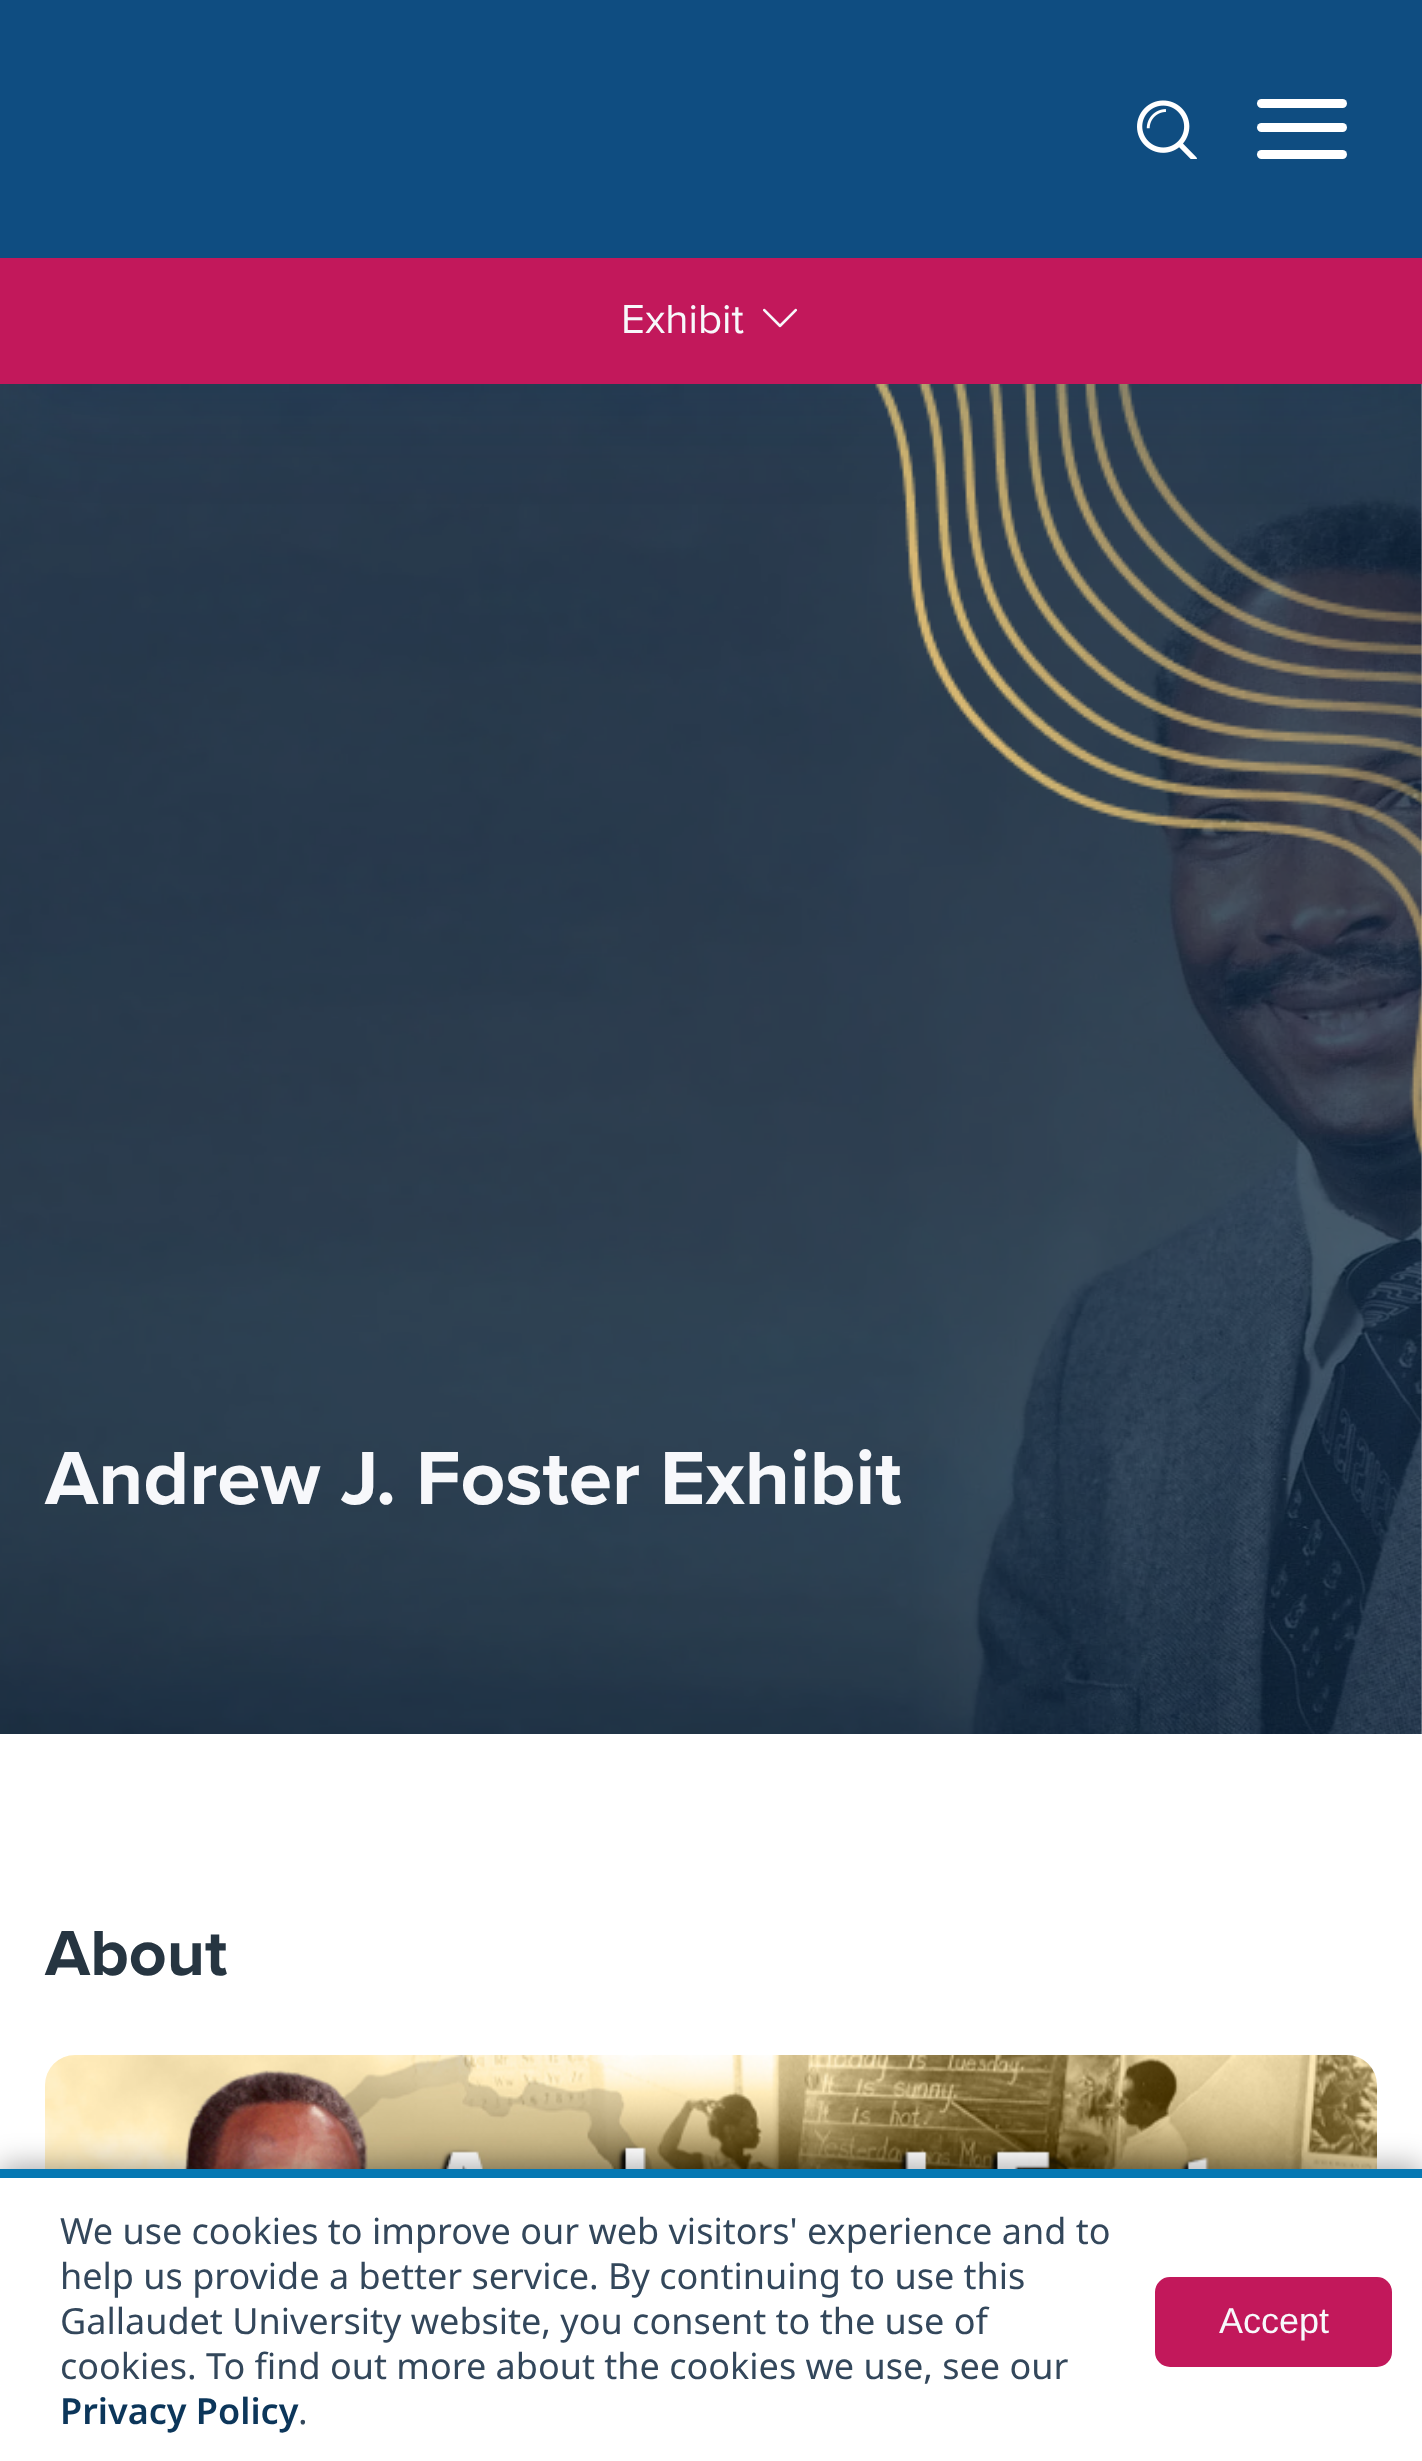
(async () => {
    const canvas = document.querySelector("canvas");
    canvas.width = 1422;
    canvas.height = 2461;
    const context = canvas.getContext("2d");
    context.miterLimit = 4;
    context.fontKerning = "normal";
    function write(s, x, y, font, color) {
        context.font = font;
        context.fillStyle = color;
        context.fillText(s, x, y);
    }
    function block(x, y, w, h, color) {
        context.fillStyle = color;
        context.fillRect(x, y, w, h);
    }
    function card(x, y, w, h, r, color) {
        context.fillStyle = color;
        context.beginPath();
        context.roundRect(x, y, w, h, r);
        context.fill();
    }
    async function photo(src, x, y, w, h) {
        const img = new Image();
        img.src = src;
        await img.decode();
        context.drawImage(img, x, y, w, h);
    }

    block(0, 0, 1422, 2461, "rgb(255, 255, 255)");
    await photo("media/3.png", 0, 384, 1422, 1350);
    await photo("media/4.png", 875, 384, 547, 772);
    context.fillStyle = "rgba(15, 78, 129, 0.14)";
    context.filter = "blur(52.5px)";
    context.beginPath();
    context.rect(15, 273, 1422, 126);
    context.fill();
    context.filter = "none";
    block(0, 0, 1422, 258, "rgb(15, 77, 129)");
    await photo("media/1.png", 1137, 100, 60, 59);
    card(1257, 99, 90, 9, 4.5, "rgb(255, 255, 255)");
    card(1257, 123, 90, 9, 4.5, "rgb(255, 255, 255)");
    card(1257, 150, 90, 9, 4.5, "rgb(255, 255, 255)");
    block(0, 258, 1422, 126, "rgb(194, 24, 91)");
    write("Exhibit", 621, 333, "42px Proxima Nova", "rgb(247, 248, 251)");
    await photo("media/2.png", 762, 308, 36, 20);
    write("Andrew J. Foster Exhibit", 45, 1504, "bold 78px Proxima Nova", "rgb(247, 248, 251)");
    write("About", 45, 1975, "bold 66px Proxima Nova", "rgb(38, 53, 65)");
    await photo("media/5.png", 45, 2055, 1332, 114);
    context.fillStyle = "rgba(0, 0, 0, 0.35)";
    context.filter = "blur(15px)";
    context.beginPath();
    context.rect(0, 2166, 1422, 294);
    context.fill();
    context.filter = "none";
    block(0, 2178, 1422, 283, "rgb(255, 255, 255)");
    block(0, 2169, 1422, 9, "rgb(6, 120, 179)");
    write("We use cookies to improve our web visitors' experience and to", 60, 2244, "36px Noto Sans", "rgb(51, 71, 91)");
    write("help us provide a better service. By continuing to use this", 60, 2289, "36px Noto Sans", "rgb(51, 71, 91)");
    write("Gallaudet University website, you consent to the use of", 60, 2334, "36px Noto Sans", "rgb(51, 71, 91)");
    write("cookies. To find out more about the cookies we use, see our", 60, 2379, "36px Noto Sans", "rgb(51, 71, 91)");
    write("Privacy Policy", 60, 2424, "600 36px Noto Sans", "rgb(12, 54, 90)");
    write(".", 298, 2424, "36px Noto Sans", "rgb(51, 71, 91)");
    context.fillStyle = "rgb(194, 24, 91)";
    context.beginPath();
    context.roundRect(1156.5, 2278.5, 234, 87, 13.5);
    context.fill();
    context.strokeStyle = "rgb(194, 24, 91)";
    context.lineWidth = 3;
    context.stroke();
    write("Accept", 1219, 2333, "36px Liberation Sans", "rgb(247, 248, 251)");
})();
